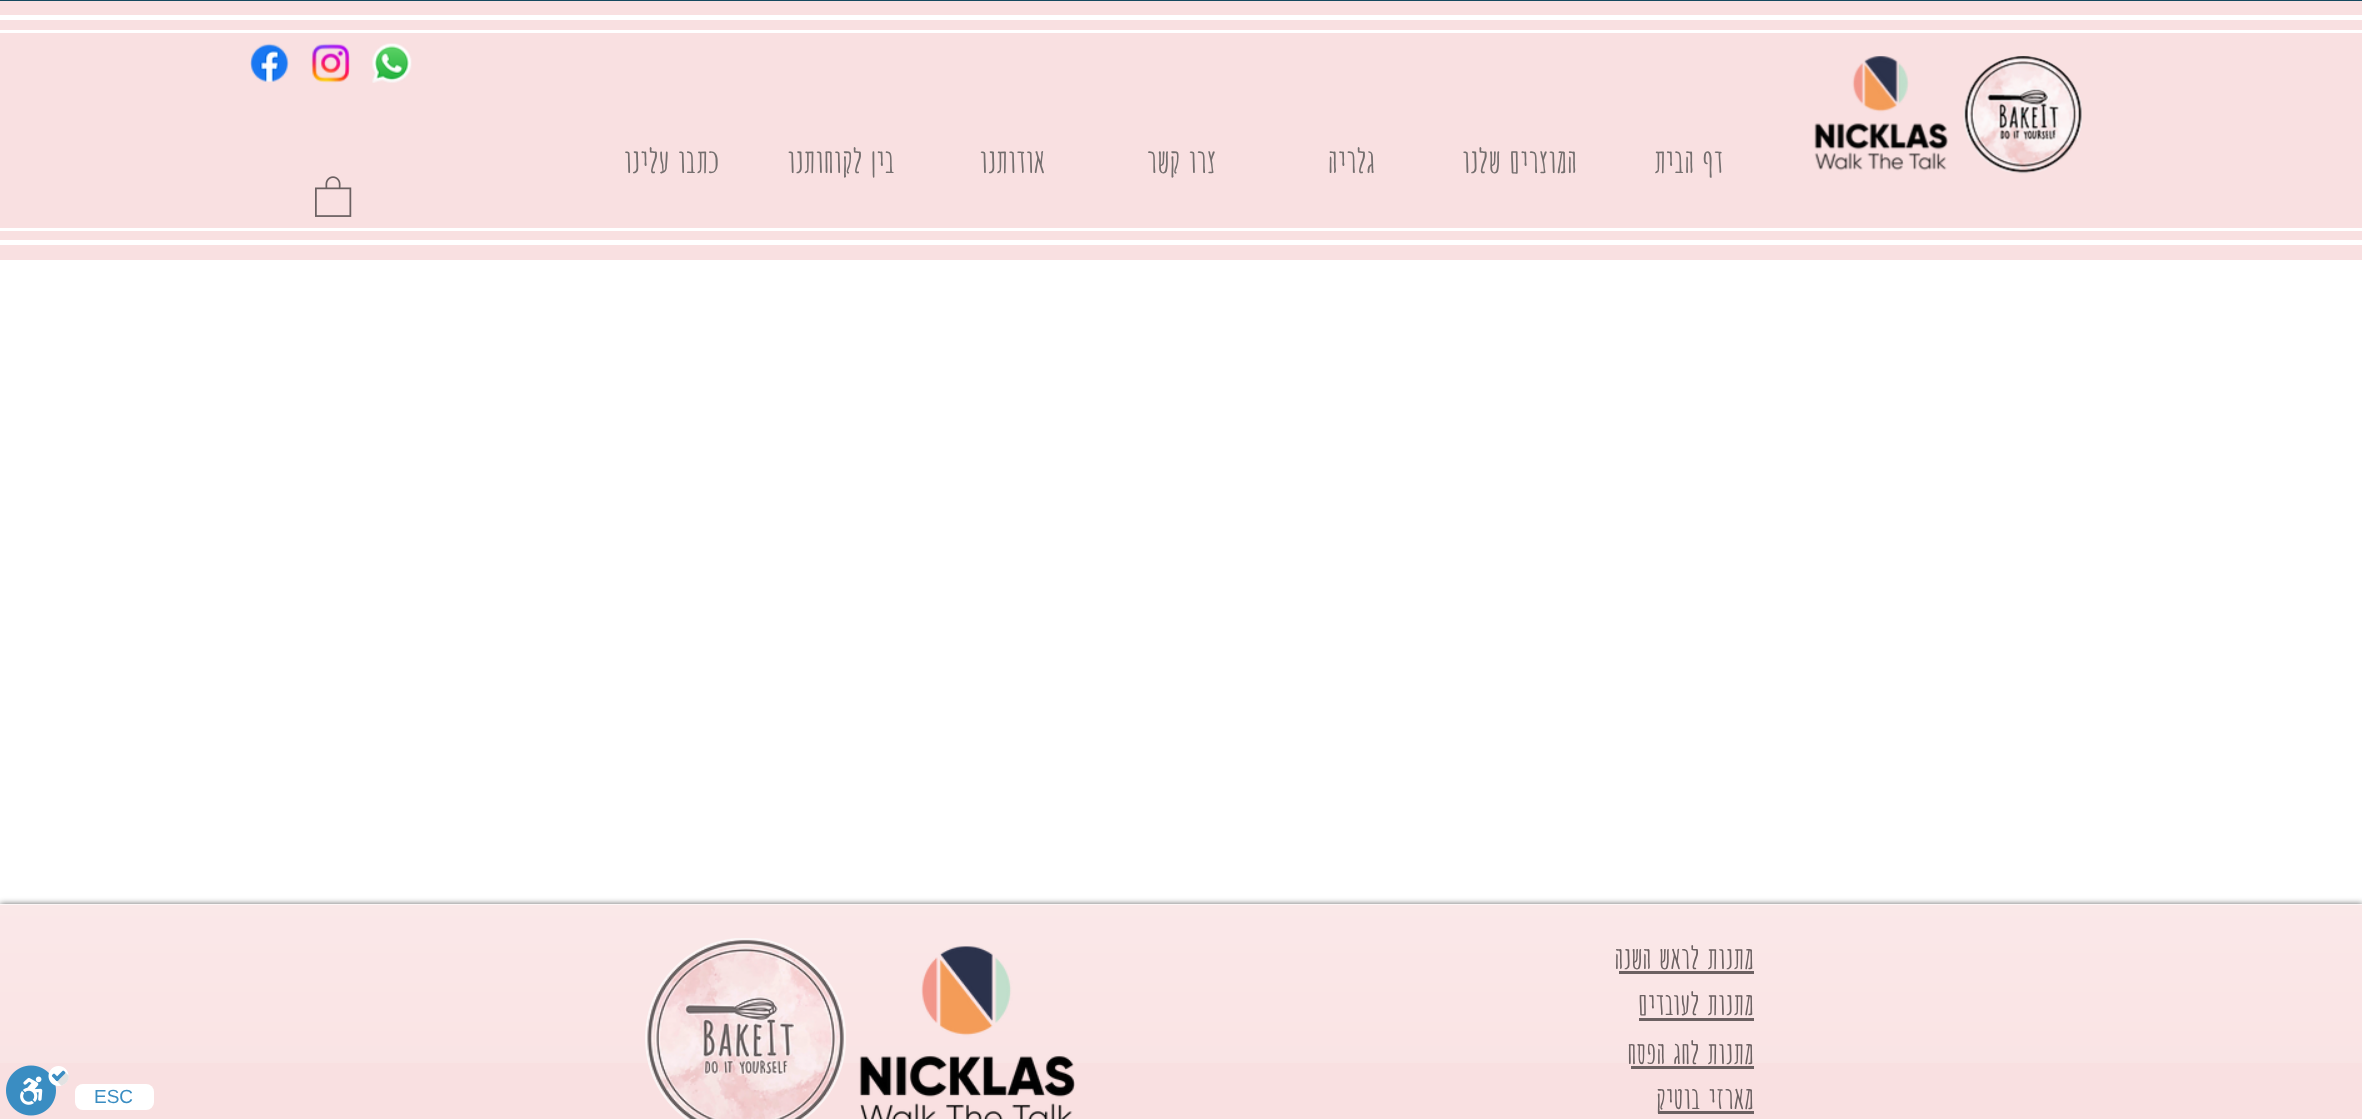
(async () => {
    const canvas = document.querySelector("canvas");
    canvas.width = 2362;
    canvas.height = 1119;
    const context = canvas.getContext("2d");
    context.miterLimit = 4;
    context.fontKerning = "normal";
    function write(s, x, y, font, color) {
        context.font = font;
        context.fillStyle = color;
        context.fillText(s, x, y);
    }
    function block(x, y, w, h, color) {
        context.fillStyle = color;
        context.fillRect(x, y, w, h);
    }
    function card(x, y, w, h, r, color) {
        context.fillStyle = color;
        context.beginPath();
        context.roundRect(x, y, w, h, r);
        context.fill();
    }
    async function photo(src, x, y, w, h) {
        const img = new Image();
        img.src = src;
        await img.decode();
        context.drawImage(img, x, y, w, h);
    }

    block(0, 0, 2362, 1119, "rgb(255, 255, 255)");
    block(0, 1, 2362, 259, "rgb(249, 224, 225)");
    block(0, 15, 2362, 5, "rgb(255, 255, 255)");
    block(0, 240, 2362, 5, "rgb(255, 255, 255)");
    block(0, 30, 2362, 3, "rgb(255, 255, 255)");
    block(0, 228, 2362, 3, "rgb(255, 255, 255)");
    await photo("media/1.png", 1963, 56, 120, 118);
    await photo("media/2.png", 1814, 56, 134, 115);
    context.direction = "rtl";
    write("דף הבית", 1723, 173, "bold 32.5px Amatic SC", "rgb(116, 110, 110)");
    write("המוצרים שלנו", 1577, 173, "bold 32.5px Amatic SC", "rgb(116, 110, 110)");
    write("גלריה", 1375, 173, "bold 32.5px Amatic SC", "rgb(116, 110, 110)");
    write("צרו קשר", 1216, 173, "bold 32.5px Amatic SC", "rgb(116, 110, 110)");
    write("אודותנו", 1045, 173, "bold 32.5px Amatic SC", "rgb(116, 110, 110)");
    write("בין לקוחותנו", 895, 173, "bold 32.5px Amatic SC", "rgb(116, 110, 110)");
    write("כתבו עלינו", 719, 173, "bold 32.5px Amatic SC", "rgb(116, 110, 110)");
    await photo("media/3.png", 372, 43, 40, 40);
    await photo("media/4.png", 311, 43, 39, 40);
    await photo("media/5.png", 250, 43, 39, 39);
    await photo("media/6.png", 315, 176, 37, 41);
    context.fillStyle = "rgba(0, 0, 0, 0.6)";
    context.filter = "blur(3px)";
    context.beginPath();
    context.rect(0, 904, 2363, 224);
    context.fill();
    context.filter = "none";
    block(0, 905, 2362, 214, "rgb(249, 224, 225)");
    await photo("media/7.png", 0, 905, 2362, 158);
    block(0, 904, 2362, 1, "rgb(253, 246, 246)");
    write("מתנות לראש השנה", 1754, 969, "bold 30px Amatic SC", "rgb(108, 97, 98)");
    block(1619, 971, 135, 3, "rgb(108, 97, 98)");
    await photo("media/8.png", 859, 946, 216, 173);
    await photo("media/9.png", 645, 938, 201, 181);
    write("מתנות לעובדים", 1754, 1015, "bold 30px Amatic SC", "rgb(108, 97, 98)");
    block(1639, 1018, 115, 3, "rgb(108, 97, 98)");
    write("מתנות לחג הפסח", 1754, 1064, "bold 30px Amatic SC", "rgb(108, 97, 98)");
    block(1631, 1066, 123, 3, "rgb(108, 97, 98)");
    block(1658, 1111, 96, 3, "rgb(108, 97, 98)");
    write("מארזי בוטיק", 1754, 1109, "bold 30px Amatic SC", "rgb(108, 97, 98)");
    block(0, 0, 2362, 1, "rgb(21, 73, 95)");
    card(75, 1084, 79, 26, 8, "rgb(255, 255, 255)");
    context.direction = "ltr";
    write("ESC", 94, 1103, "19px Liberation Sans", "rgb(58, 141, 194)");
    await photo("media/10.png", 6, 1065, 63, 51);
})();
